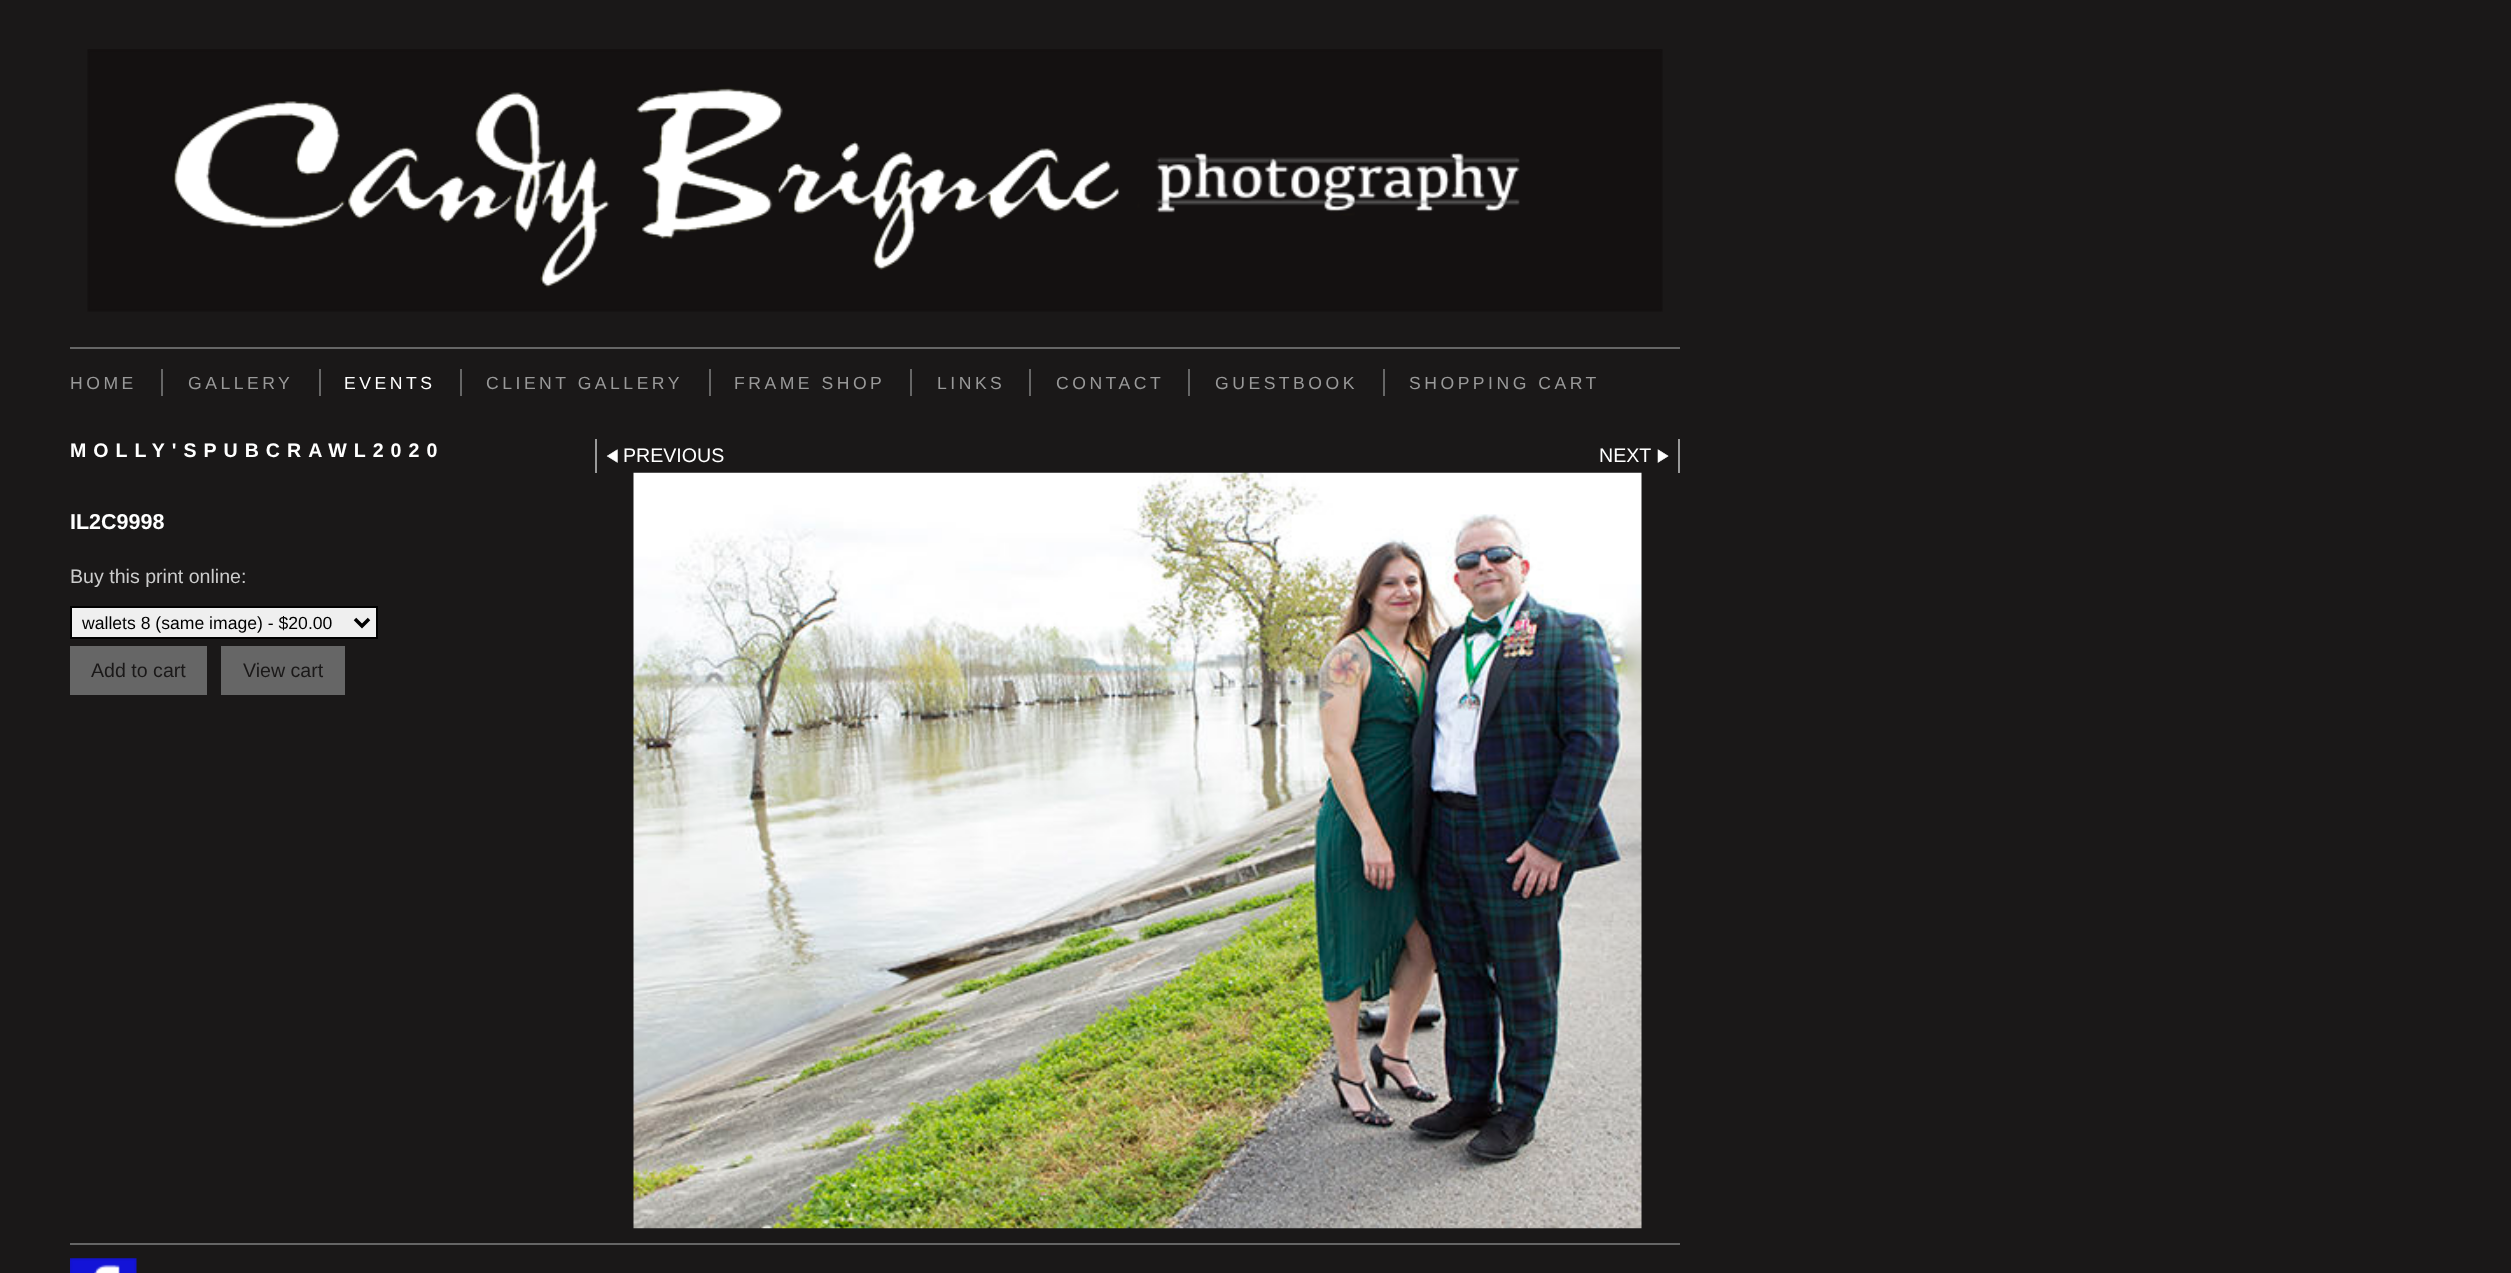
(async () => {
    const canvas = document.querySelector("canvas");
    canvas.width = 2511;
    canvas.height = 1273;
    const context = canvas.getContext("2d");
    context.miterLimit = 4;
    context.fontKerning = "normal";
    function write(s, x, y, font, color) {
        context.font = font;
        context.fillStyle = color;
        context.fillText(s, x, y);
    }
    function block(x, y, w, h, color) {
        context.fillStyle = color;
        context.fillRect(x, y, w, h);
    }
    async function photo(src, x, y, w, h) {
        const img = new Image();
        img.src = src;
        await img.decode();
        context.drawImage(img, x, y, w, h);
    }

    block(0, 0, 2511, 1273, "rgb(26, 24, 24)");
    block(70, 347, 1610, 2, "rgb(102, 102, 102)");
    await photo("media/1.png", 87, 49, 1576, 263);
    context.letterSpacing = "3.5px";
    write("HOME", 70, 389, "17.6px Liberation Sans", "rgb(153, 153, 153)");
    block(161, 369, 2, 27, "rgb(102, 102, 102)");
    write("GALLERY", 188, 389, "17.6px Liberation Sans", "rgb(153, 153, 153)");
    block(319, 369, 2, 27, "rgb(102, 102, 102)");
    write("EVENTS", 344, 389, "17.6px Liberation Sans", "rgb(255, 255, 255)");
    block(460, 369, 2, 27, "rgb(102, 102, 102)");
    write("CLIENT GALLERY", 486, 389, "17.6px Liberation Sans", "rgb(153, 153, 153)");
    block(709, 369, 2, 27, "rgb(102, 102, 102)");
    write("FRAME SHOP", 734, 389, "17.6px Liberation Sans", "rgb(153, 153, 153)");
    block(910, 369, 2, 27, "rgb(102, 102, 102)");
    write("LINKS", 937, 389, "17.6px Liberation Sans", "rgb(153, 153, 153)");
    block(1029, 369, 2, 27, "rgb(102, 102, 102)");
    write("CONTACT", 1056, 389, "17.6px Liberation Sans", "rgb(153, 153, 153)");
    block(1188, 369, 2, 27, "rgb(102, 102, 102)");
    write("GUESTBOOK", 1215, 389, "17.6px Liberation Sans", "rgb(153, 153, 153)");
    block(1383, 369, 2, 27, "rgb(102, 102, 102)");
    write("SHOPPING CART", 1409, 389, "17.6px Liberation Sans", "rgb(153, 153, 153)");
    context.letterSpacing = "7px";
    write("MOLLY'SPUBCRAWL2020", 70, 457, "bold 19.6px Liberation Sans", "rgb(255, 255, 255)");
    context.letterSpacing = "0px";
    write("IL2C9998", 70, 529, "bold 21.5px Liberation Sans", "rgb(255, 255, 255)");
    write("Buy this print online:", 70, 583, "19.6px Liberation Sans", "rgb(204, 204, 204)");
    context.fillStyle = "rgb(239, 239, 239)";
    context.beginPath();
    context.rect(71, 607, 306, 31);
    context.fill();
    context.strokeStyle = "rgb(0, 0, 0)";
    context.lineWidth = 2;
    context.stroke();
    context.beginPath();
    context.moveTo(355, 619);
    context.lineTo(362, 626);
    context.lineTo(369, 619);
    context.lineWidth = 3.5;
    context.stroke();
    write("wallets 8 (same image) - $20.00", 82, 629, "17.6px Liberation Sans", "rgb(0, 0, 0)");
    block(70, 646, 137, 49, "rgb(102, 102, 102)");
    write("Add to cart", 91, 677, "19.6px Liberation Sans", "rgb(26, 24, 24)");
    block(221, 646, 124, 49, "rgb(102, 102, 102)");
    write("View cart", 243, 677, "19.6px Liberation Sans", "rgb(26, 24, 24)");
    block(595, 439, 2, 34, "rgb(153, 153, 153)");
    await photo("media/2.png", 606, 449, 12, 14);
    write("PREVIOUS", 623, 462, "19.6px Liberation Sans", "rgb(255, 255, 255)");
    block(1678, 439, 2, 34, "rgb(153, 153, 153)");
    write("NEXT", 1599, 462, "19.6px Liberation Sans", "rgb(255, 255, 255)");
    await photo("media/3.png", 1657, 449, 12, 14);
    await photo("media/4.png", 633, 472, 1009, 757);
    block(70, 1243, 1610, 2, "rgb(102, 102, 102)");
    await photo("media/5.png", 70, 1258, 67, 15);
})();
